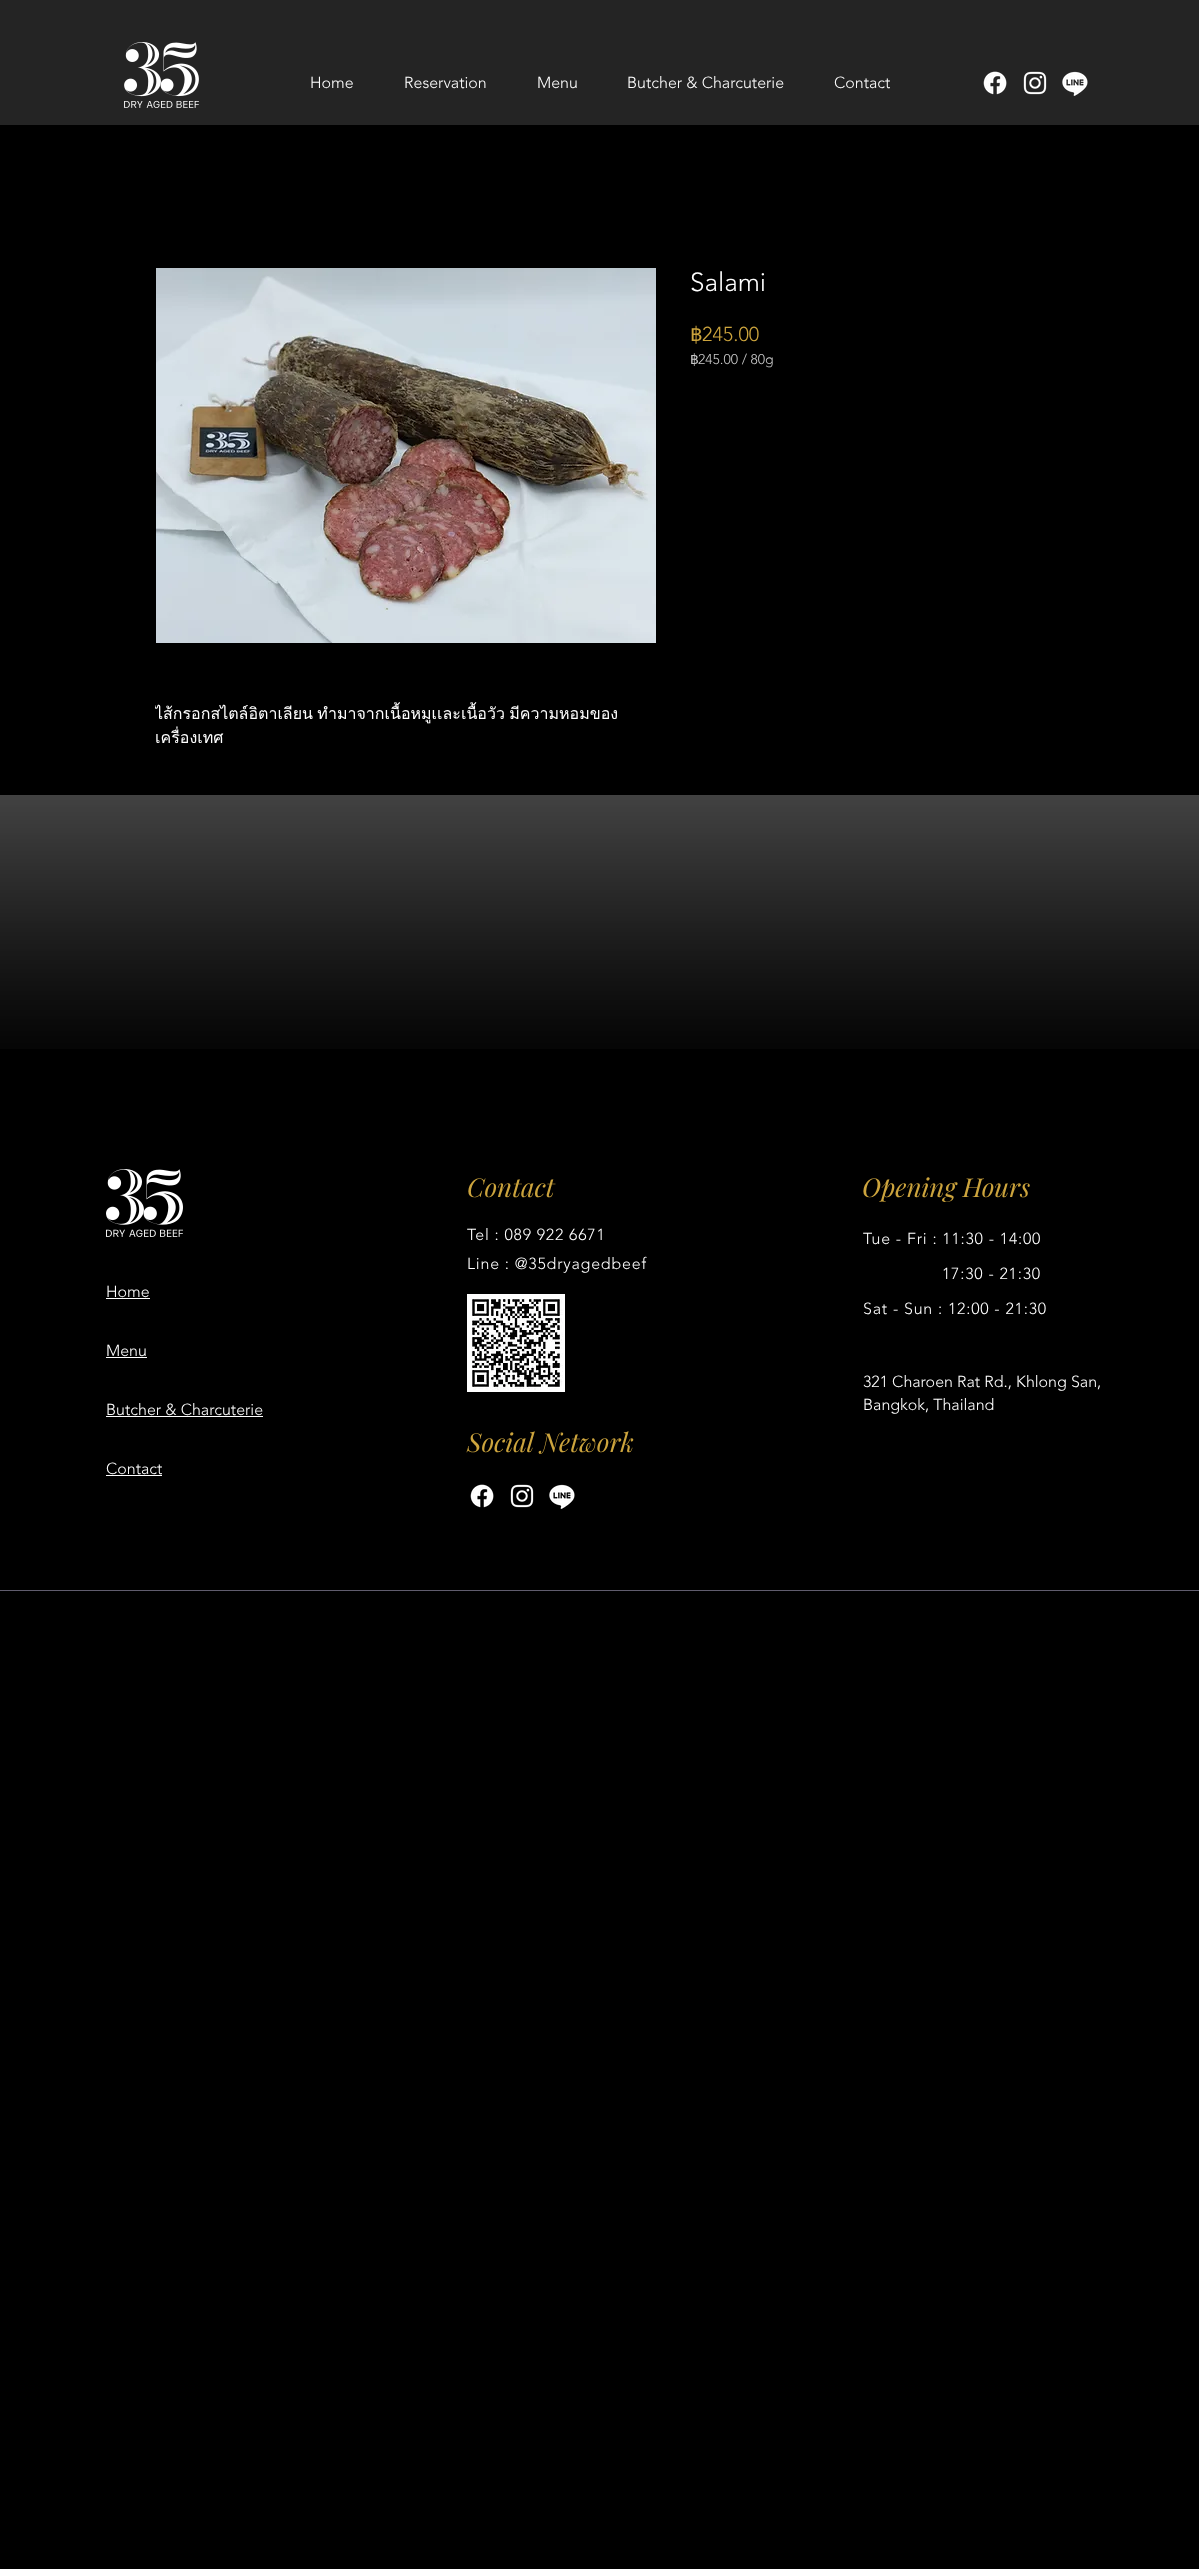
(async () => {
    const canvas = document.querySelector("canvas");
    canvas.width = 1199;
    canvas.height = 2569;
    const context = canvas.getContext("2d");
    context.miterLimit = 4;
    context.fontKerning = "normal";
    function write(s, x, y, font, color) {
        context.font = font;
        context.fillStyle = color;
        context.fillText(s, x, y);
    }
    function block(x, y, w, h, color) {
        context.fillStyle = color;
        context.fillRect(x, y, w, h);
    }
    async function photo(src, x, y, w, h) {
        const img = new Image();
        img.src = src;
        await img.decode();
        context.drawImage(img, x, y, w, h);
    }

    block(0, 0, 1199, 2569, "rgb(0, 0, 0)");
    block(0, 0, 1199, 125, "rgb(36, 36, 36)");
    await photo("media/1.png", 124, 42, 75, 66);
    write("Home", 310, 88, "300 16px 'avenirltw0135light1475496'", "rgb(255, 255, 255)");
    write("Reservation", 404, 88, "300 16px 'avenirltw0135light1475496'", "rgb(255, 255, 255)");
    write("Menu", 537, 88, "300 16px 'avenirltw0135light1475496'", "rgb(255, 255, 255)");
    write("Butcher & Charcuterie", 627, 88, "300 16px 'avenirltw0135light1475496'", "rgb(255, 255, 255)");
    write("Contact", 834, 88, "300 16px 'avenirltw0135light1475496'", "rgb(255, 255, 255)");
    await photo("media/2.png", 983, 71, 24, 24);
    await photo("media/3.png", 1023, 71, 24, 24);
    await photo("media/4.png", 1062, 71, 26, 25);
    write("Salami", 690, 291, "300 26px 'avenirltw0135light1475496'", "rgb(255, 255, 255)");
    write("฿", 690, 341, "20px DejaVu Sans", "rgb(204, 164, 61)");
    write("245.00", 702, 341, "300 20px 'avenirltw0135light1475496'", "rgb(204, 164, 61)");
    write("฿", 690, 364, "14px DejaVu Sans", "rgb(201, 201, 201)");
    write("245.00 / 80g", 698, 364, "300 14px 'avenirltw0135light1475496'", "rgb(201, 201, 201)");
    await photo("media/5.png", 156, 268, 500, 375);
    context.save();
    context.beginPath();
    context.rect(155, 702, 500, 48);
    context.clip();
    context.wordSpacing = "-1px";
    write("ไส้กรอกสไตล์อิตาเลียน ทำมาจากเนื้อหมูเเละเนื้อวัว มีความหอมของ", 155, 719, "16px Loma", "rgb(255, 255, 255)");
    context.restore();
    write("เครื่องเทศ", 155, 743, "16px Loma", "rgb(255, 255, 255)");
    await photo("media/6.png", 0, 795, 1199, 254);
    await photo("media/7.png", 106, 1169, 77, 68);
    write("Home", 106, 1297, "300 16px 'avenirltw0135light1475496'", "rgb(255, 255, 255)");
    block(106, 1298, 44, 1, "rgb(255, 255, 255)");
    write("Menu", 106, 1356, "300 16px 'avenirltw0135light1475496'", "rgb(255, 255, 255)");
    block(106, 1357, 41, 1, "rgb(255, 255, 255)");
    write("Butcher & Charcuterie", 106, 1415, "300 16px 'avenirltw0135light1475496'", "rgb(255, 255, 255)");
    block(106, 1416, 157, 1, "rgb(255, 255, 255)");
    write("Contact", 106, 1474, "300 16px 'avenirltw0135light1475496'", "rgb(255, 255, 255)");
    block(106, 1475, 56, 1, "rgb(255, 255, 255)");
    write("Contact", 467, 1197, "italic 26px Playfair Display", "rgb(204, 164, 61)");
    context.letterSpacing = "0.8px";
    write("Tel : 089 922 6671", 467, 1240, "300 16px 'avenirltw0135light1475496'", "rgb(255, 255, 255)");
    write("Line : @35dryagedbeef", 467, 1269, "300 16px 'avenirltw0135light1475496'", "rgb(255, 255, 255)");
    await photo("media/8.png", 467, 1294, 98, 98);
    context.letterSpacing = "0px";
    write("Social Network", 467, 1452, "italic 26px Playfair Display", "rgb(204, 164, 61)");
    await photo("media/9.png", 470, 1484, 24, 24);
    await photo("media/10.png", 510, 1484, 24, 24);
    await photo("media/11.png", 549, 1484, 26, 25);
    write("Opening Hours", 862, 1197, "italic 26px Playfair Display", "rgb(204, 164, 61)");
    context.letterSpacing = "0.8px";
    write("Tue - Fri : 11:30 - 14:00", 863, 1244, "300 16px 'avenirltw0135light1475496'", "rgb(255, 255, 255)");
    write("17:30 - 21:30", 942, 1279, "300 16px 'avenirltw0135light1475496'", "rgb(255, 255, 255)");
    write("Sat - Sun : 12:00 - 21:30", 863, 1314, "300 16px 'avenirltw0135light1475496'", "rgb(255, 255, 255)");
    context.letterSpacing = "0px";
    write("321 Charoen Rat Rd., Khlong San,", 863, 1387, "300 16px 'avenirltw0135light1475496'", "rgb(255, 255, 255)");
    write("Bangkok, Thailand", 863, 1410, "300 16px 'avenirltw0135light1475496'", "rgb(255, 255, 255)");
    block(0, 1590, 1199, 1, "rgb(96, 93, 110)");
})();
